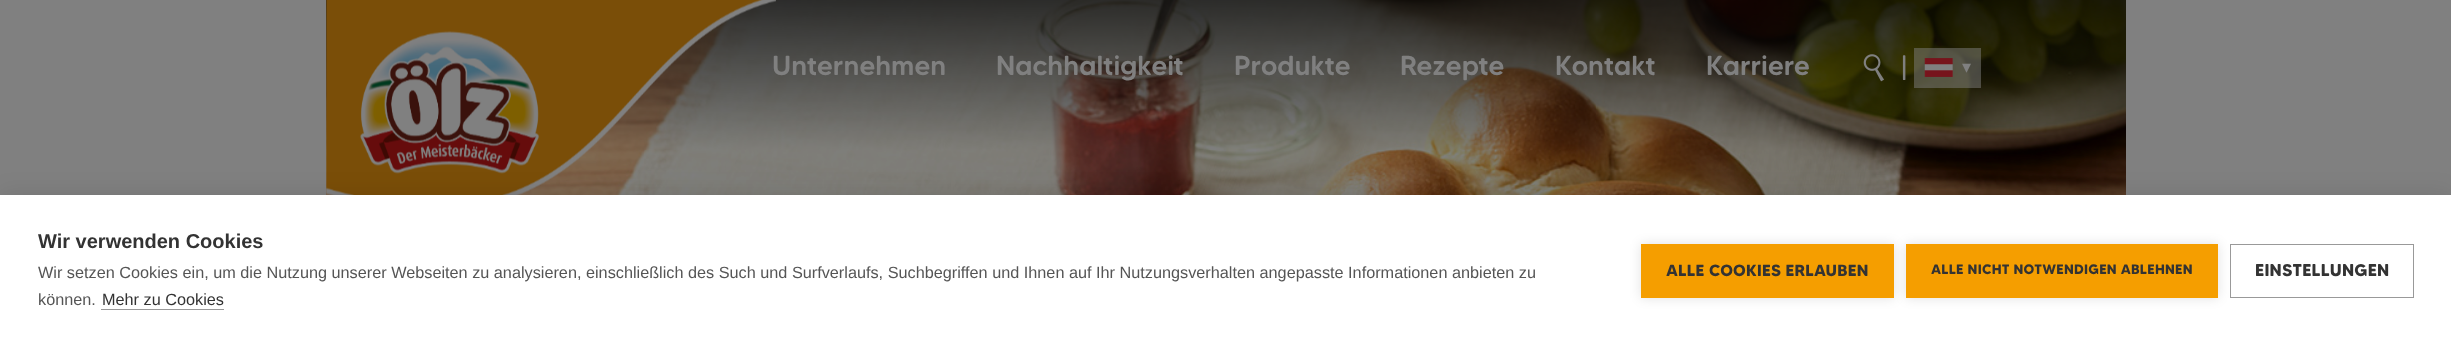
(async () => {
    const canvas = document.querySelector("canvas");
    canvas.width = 2451;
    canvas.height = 345;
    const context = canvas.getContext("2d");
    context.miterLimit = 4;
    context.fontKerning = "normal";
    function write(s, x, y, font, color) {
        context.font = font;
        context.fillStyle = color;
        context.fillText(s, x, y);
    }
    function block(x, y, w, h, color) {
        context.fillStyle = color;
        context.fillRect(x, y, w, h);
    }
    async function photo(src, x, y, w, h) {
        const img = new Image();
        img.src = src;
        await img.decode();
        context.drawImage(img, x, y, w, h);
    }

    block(0, 0, 2451, 345, "rgb(128, 128, 128)");
    await photo("media/1.png", 326, 0, 1800, 195);
    await photo("media/2.png", 326, 0, 450, 195);
    write("Unternehmen", 772, 75, "500 27.5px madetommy", "rgb(128, 128, 128)");
    write("Nachhaltigkeit", 996, 75, "500 27.5px madetommy", "rgb(128, 128, 128)");
    write("Produkte", 1234, 75, "500 27.5px madetommy", "rgb(128, 128, 128)");
    write("Rezepte", 1400, 75, "500 27.5px madetommy", "rgb(128, 128, 128)");
    write("Kontakt", 1555, 75, "500 27.5px madetommy", "rgb(128, 128, 128)");
    write("Karriere", 1706, 75, "500 27.5px madetommy", "rgb(128, 128, 128)");
    await photo("media/3.png", 1863, 54, 21, 28);
    write("|", 1901, 76, "27.5px madetommy", "rgb(128, 128, 128)");
    block(1914, 48, 67, 40, "rgba(128, 128, 128, 0.5)");
    await photo("media/4.png", 1924, 58, 29, 19);
    write("▾", 1962, 73, "18px DejaVu Sans", "rgb(128, 128, 128)");
    context.fillStyle = "rgba(0, 0, 0, 0.1)";
    context.filter = "blur(12.5px)";
    context.beginPath();
    context.rect(0, 195, 2451, 150);
    context.fill();
    context.filter = "none";
    block(0, 195, 2451, 150, "rgb(255, 255, 255)");
    write("Wir verwenden Cookies", 38, 248, "bold 20px Liberation Sans", "rgb(51, 51, 51)");
    write("Wir setzen Cookies ein, um die Nutzung unserer Webseiten zu analysieren, einschließlich des Such und Surfverlaufs, Suchbegriffen und Ihnen auf Ihr Nutzungsverhalten angepasste Informationen anbieten zu", 38, 278, "16.25px Liberation Sans", "rgb(85, 85, 85)");
    write("können.", 38, 305, "16.25px Liberation Sans", "rgb(85, 85, 85)");
    write("Mehr zu Cookies", 102, 305, "16.25px Liberation Sans", "rgb(51, 51, 51)");
    block(101, 309, 123, 1, "rgb(153, 153, 153)");
    context.fillStyle = "rgba(0, 0, 0, 0.12)";
    context.filter = "blur(6px)";
    context.beginPath();
    context.rect(1641, 244, 253, 54);
    context.fill();
    context.filter = "none";
    block(1641, 244, 253, 54, "rgb(245, 158, 0)");
    context.letterSpacing = "0.25px";
    write("ALLE COOKIES ERLAUBEN", 1666, 276, "bold 16.25px madetommy", "rgb(51, 51, 51)");
    context.fillStyle = "rgba(0, 0, 0, 0.12)";
    context.filter = "blur(6px)";
    context.beginPath();
    context.rect(1906, 244, 312, 54);
    context.fill();
    context.filter = "none";
    block(1906, 244, 312, 54, "rgb(245, 158, 0)");
    write("ALLE NICHT NOTWENDIGEN ABLEHNEN", 1931, 274, "bold 13.75px madetommy", "rgb(51, 51, 51)");
    context.strokeStyle = "rgb(153, 153, 153)";
    context.strokeRect(2230.5, 244.5, 183, 53);
    write("EINSTELLUNGEN", 2255, 276, "bold 17px madetommy", "rgb(51, 51, 51)");
})();
